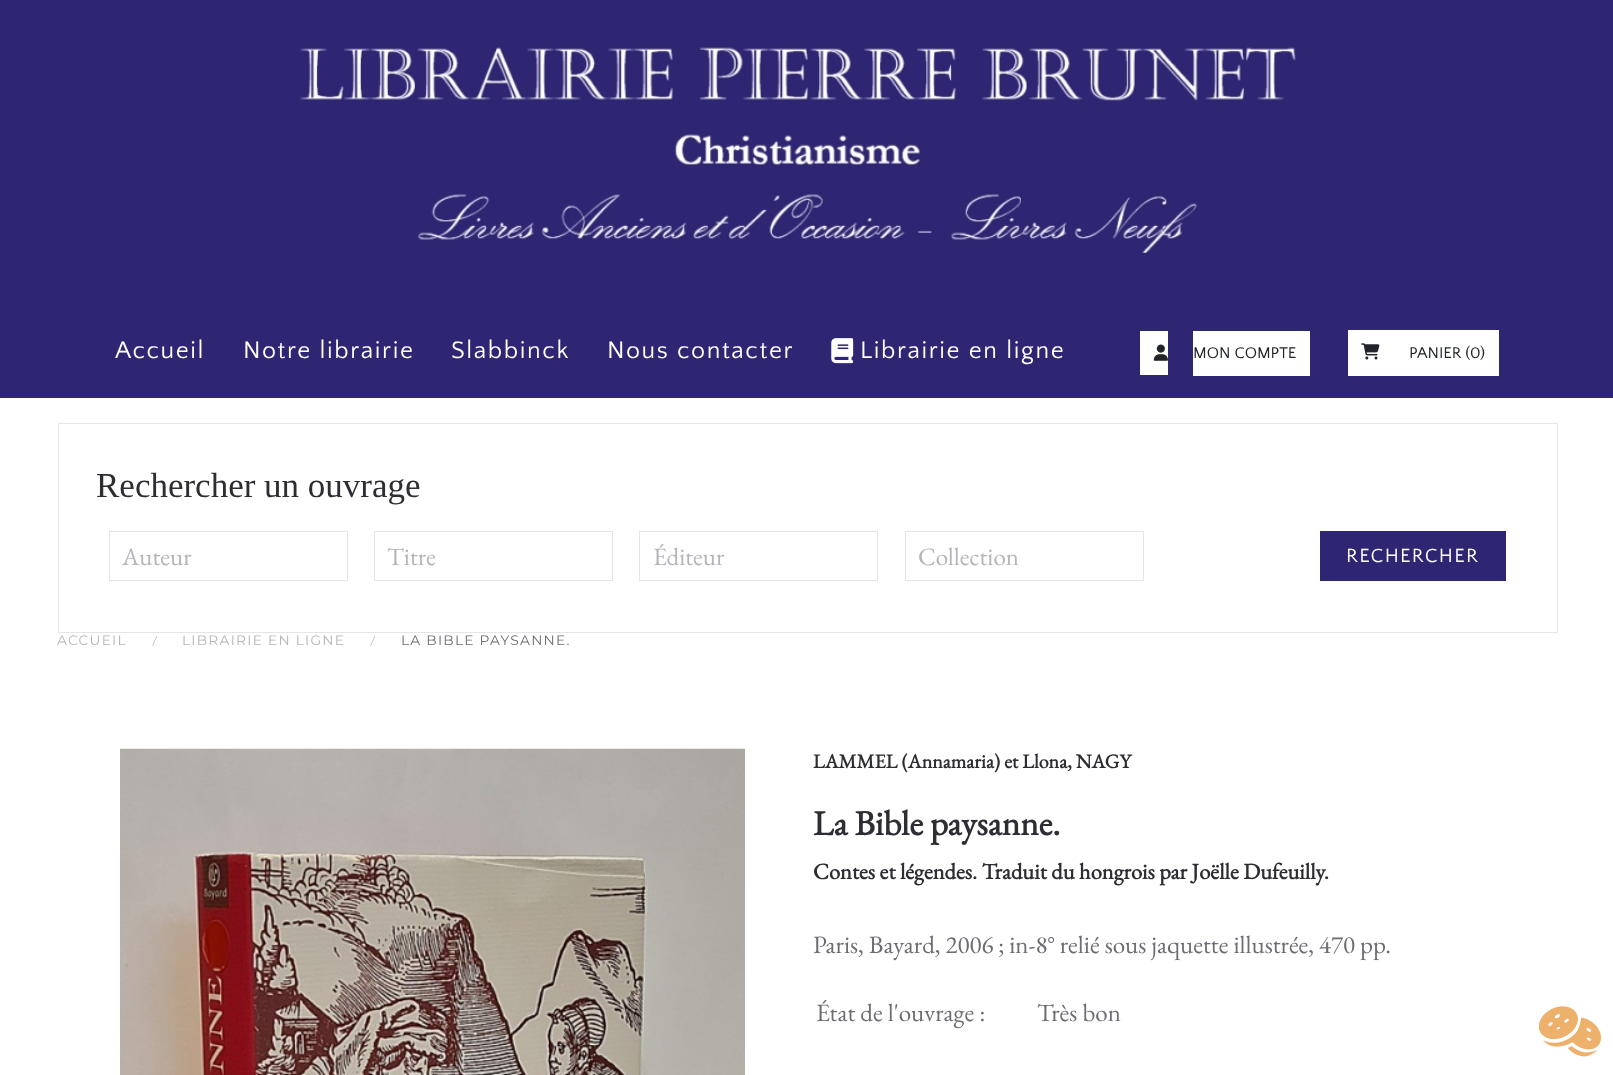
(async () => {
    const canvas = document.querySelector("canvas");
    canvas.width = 1613;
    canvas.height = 1075;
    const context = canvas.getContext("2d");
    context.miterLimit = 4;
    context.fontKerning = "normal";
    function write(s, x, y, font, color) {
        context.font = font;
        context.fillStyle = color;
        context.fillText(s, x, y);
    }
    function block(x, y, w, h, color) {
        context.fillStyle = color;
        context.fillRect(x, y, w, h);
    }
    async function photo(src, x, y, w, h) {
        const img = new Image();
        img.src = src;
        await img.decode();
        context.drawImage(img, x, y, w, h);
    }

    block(0, 0, 1613, 1075, "rgb(255, 255, 255)");
    block(0, 0, 1613, 398, "rgb(46, 38, 115)");
    await photo("media/1.png", 300, 46, 996, 208);
    context.letterSpacing = "1.6px";
    write("Accueil", 115, 358, "25px Quattrocento Sans", "rgb(255, 255, 255)");
    write("Notre librairie", 243, 358, "25px Quattrocento Sans", "rgb(255, 255, 255)");
    write("Slabbinck", 451, 358, "25px Quattrocento Sans", "rgb(255, 255, 255)");
    write("Nous contacter", 607, 358, "25px Quattrocento Sans", "rgb(255, 255, 255)");
    await photo("media/2.png", 831, 338, 23, 26);
    write("Librairie en ligne", 860, 358, "25px Quattrocento Sans", "rgb(255, 255, 255)");
    block(1140, 331, 28, 44, "rgb(255, 255, 255)");
    block(1193, 331, 117, 45, "rgb(255, 255, 255)");
    await photo("media/3.png", 1153, 344, 15, 17);
    context.letterSpacing = "0px";
    write("MON COMPTE", 1193, 358, "16.25px Quattrocento Sans", "rgb(33, 37, 41)");
    block(1348, 330, 151, 46, "rgb(255, 255, 255)");
    await photo("media/4.png", 1361, 343, 19, 17);
    write("PANIER (0)", 1409, 358, "16.25px Quattrocento Sans", "rgb(33, 37, 41)");
    context.strokeStyle = "rgb(229, 229, 231)";
    context.strokeRect(58.5, 423.5, 1499, 209);
    write("Rechercher un ouvrage", 96, 497, "35px Liberation Serif", "rgb(45, 46, 51)");
    context.strokeRect(109.5, 531.5, 238, 49);
    write("Auteur", 122, 565, "25px EB Garamond", "rgb(180, 181, 186)");
    context.strokeRect(374.5, 531.5, 238, 49);
    write("Titre", 387, 565, "25px EB Garamond", "rgb(180, 181, 186)");
    context.strokeRect(639.5, 531.5, 238, 49);
    write("Éditeur", 653, 565, "25px EB Garamond", "rgb(180, 181, 186)");
    context.strokeRect(905.5, 531.5, 238, 49);
    write("Collection", 918, 565, "25px EB Garamond", "rgb(180, 181, 186)");
    block(1320, 531, 186, 50, "rgb(46, 38, 115)");
    context.letterSpacing = "1.25px";
    write("RECHERCHER", 1346, 562, "20px Quattrocento Sans", "rgb(255, 255, 255)");
    write("ACCUEIL", 57, 645, "100 13.75px Montserrat", "rgb(180, 181, 186)");
    context.letterSpacing = "0px";
    write("/", 152, 645, "13.75px EB Garamond", "rgb(180, 181, 186)");
    context.letterSpacing = "1.25px";
    write("LIBRAIRIE EN LIGNE", 182, 645, "100 13.75px Montserrat", "rgb(180, 181, 186)");
    context.letterSpacing = "0px";
    write("/", 370, 645, "13.75px EB Garamond", "rgb(180, 181, 186)");
    context.letterSpacing = "1.25px";
    write("LA BIBLE PAYSANNE.", 401, 645, "100 13.75px Montserrat", "rgb(108, 109, 116)");
    await photo("media/5.png", 120, 748, 625, 327);
    context.letterSpacing = "0px";
    write("LAMMEL (Annamaria) et Llona, NAGY", 813, 768, "bold 20px EB Garamond", "rgb(45, 46, 51)");
    write("La Bible paysanne.", 813, 835, "bold 35px EB Garamond", "rgb(45, 46, 51)");
    write("Contes et légendes. Traduit du hongrois par Joëlle Dufeuilly.", 813, 879, "bold 22.5px EB Garamond", "rgb(45, 46, 51)");
    write("Paris, Bayard, 2006 ; in-8° relié sous jaquette illustrée, 470 pp.", 813, 953, "25px EB Garamond", "rgb(108, 109, 116)");
    write("État de l'ouvrage :", 816, 1021, "25px EB Garamond", "rgb(108, 109, 116)");
    write("Très bon", 1037, 1021, "25px EB Garamond", "rgb(108, 109, 116)");
    await photo("media/6.png", 1539, 1006, 62, 51);
})();
